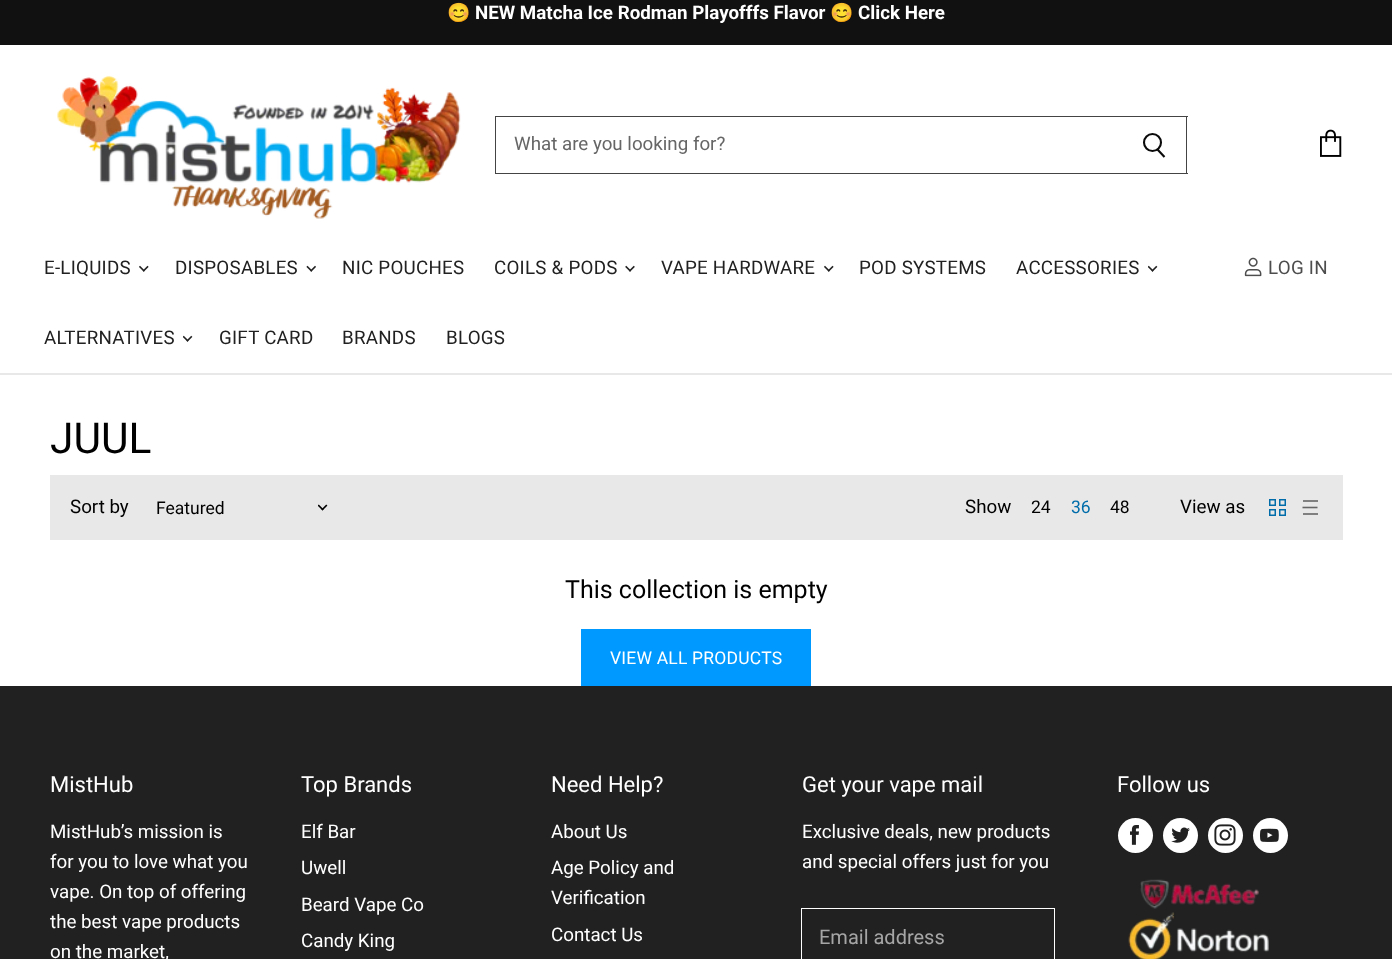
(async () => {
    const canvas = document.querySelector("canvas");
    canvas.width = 1392;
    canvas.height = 959;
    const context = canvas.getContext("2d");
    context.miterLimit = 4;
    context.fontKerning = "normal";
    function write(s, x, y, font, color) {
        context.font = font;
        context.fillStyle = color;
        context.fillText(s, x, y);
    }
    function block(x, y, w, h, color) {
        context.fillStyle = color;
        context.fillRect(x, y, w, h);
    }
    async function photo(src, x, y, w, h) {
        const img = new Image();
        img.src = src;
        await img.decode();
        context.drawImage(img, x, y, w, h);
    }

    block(0, 0, 1392, 959, "rgb(255, 255, 255)");
    block(0, 0, 1392, 45, "rgb(17, 17, 17)");
    write("😊", 447, 19, "bold 18.75px Noto Color Emoji", "rgb(255, 255, 255)");
    write("NEW Matcha Ice Rodman Playofffs Flavor", 475, 19, "bold 18.75px Roboto", "rgb(255, 255, 255)");
    write("😊", 830, 19, "bold 18.75px Noto Color Emoji", "rgb(255, 255, 255)");
    write("Click Here", 858, 19, "bold 18.75px Roboto", "rgb(255, 255, 255)");
    block(0, 373, 1392, 2, "rgb(232, 232, 232)");
    await photo("media/1.png", 57, 75, 404, 144);
    block(495, 116, 693, 1, "rgb(68, 68, 68)");
    block(1186, 116, 1, 58, "rgb(68, 68, 68)");
    block(495, 173, 693, 1, "rgb(68, 68, 68)");
    context.beginPath();
    context.moveTo(1164.5, 157);
    context.lineTo(1157.5, 149.5);
    context.strokeStyle = "rgb(10, 10, 10)";
    context.lineWidth = 2.1;
    context.stroke();
    context.beginPath();
    context.arc(1152.5, 142.5, 8.5, 0, Math.PI * 2);
    context.stroke();
    block(495, 116, 1, 58, "rgb(68, 68, 68)");
    write("What are you looking for?", 514, 150, "18.75px Roboto", "rgb(102, 102, 102)");
    await photo("media/2.png", 1320, 129, 22, 28);
    context.letterSpacing = "0.25px";
    write("E-LIQUIDS", 44, 274, "18.75px Roboto", "rgb(33, 33, 33)");
    await photo("media/3.png", 139, 265, 10, 7);
    write("DISPOSABLES", 175, 274, "18.75px Roboto", "rgb(33, 33, 33)");
    await photo("media/4.png", 306, 265, 10, 7);
    write("NIC POUCHES", 342, 274, "18.75px Roboto", "rgb(33, 33, 33)");
    write("COILS & PODS", 494, 274, "18.75px Roboto", "rgb(33, 33, 33)");
    await photo("media/5.png", 625, 265, 10, 7);
    write("VAPE HARDWARE", 661, 274, "18.75px Roboto", "rgb(33, 33, 33)");
    await photo("media/3.png", 824, 265, 10, 7);
    write("POD SYSTEMS", 859, 274, "18.75px Roboto", "rgb(33, 33, 33)");
    write("ACCESSORIES", 1016, 274, "18.75px Roboto", "rgb(33, 33, 33)");
    await photo("media/6.png", 1148, 265, 10, 7);
    write("ALTERNATIVES", 44, 344, "18.75px Roboto", "rgb(33, 33, 33)");
    await photo("media/6.png", 183, 335, 10, 7);
    write("GIFT CARD", 219, 344, "18.75px Roboto", "rgb(33, 33, 33)");
    write("BRANDS", 342, 344, "18.75px Roboto", "rgb(33, 33, 33)");
    write("BLOGS", 446, 344, "18.75px Roboto", "rgb(33, 33, 33)");
    await photo("media/7.png", 1244, 257, 18, 20);
    write("LOG IN", 1268, 274, "18.75px Roboto", "rgb(77, 77, 77)");
    context.letterSpacing = "0px";
    write("JUUL", 50, 453, "42.5px Roboto", "rgb(0, 0, 0)");
    block(50, 475, 1293, 65, "rgb(232, 232, 232)");
    write("Sort by", 70, 513, "18.75px Roboto", "rgb(0, 0, 0)");
    write("Featured", 156, 514, "17.5px Roboto", "rgb(0, 0, 0)");
    await photo("media/8.png", 318, 504, 10, 7);
    write("Show", 965, 513, "18.75px Roboto", "rgb(0, 0, 0)");
    write("24", 1031, 513, "17.5px Roboto", "rgb(0, 0, 0)");
    write("36", 1071, 513, "17.5px Roboto", "rgb(0, 109, 170)");
    write("48", 1110, 513, "17.5px Roboto", "rgb(0, 0, 0)");
    write("View as", 1180, 513, "18.75px Roboto", "rgb(0, 0, 0)");
    await photo("media/9.png", 1269, 499, 17, 17);
    block(1303, 500, 15, 2, "rgb(128, 128, 128)");
    context.beginPath();
    context.moveTo(1302.5, 507.5);
    context.lineTo(1317.5, 507.5);
    context.strokeStyle = "rgb(102, 102, 102)";
    context.lineWidth = 1.6;
    context.lineJoin = "round";
    context.stroke();
    block(1303, 513, 15, 2, "rgb(128, 128, 128)");
    write("This collection is empty", 565, 598, "25px Roboto", "rgb(0, 0, 0)");
    block(581, 629, 230, 57, "rgb(0, 153, 255)");
    context.letterSpacing = "0.2px";
    write("VIEW ALL PRODUCTS", 610, 664, "17.5px Roboto", "rgb(255, 255, 255)");
    block(0, 686, 1392, 273, "rgb(33, 33, 33)");
    context.letterSpacing = "0px";
    write("MistHub", 50, 792, "22px Roboto", "rgb(255, 255, 255)");
    write("MistHub’s mission is", 50, 838, "18.75px Roboto", "rgb(255, 255, 255)");
    write("for you to love what you", 50, 868, "18.75px Roboto", "rgb(255, 255, 255)");
    write("vape. On top of offering", 50, 898, "18.75px Roboto", "rgb(255, 255, 255)");
    write("the best vape products", 50, 928, "18.75px Roboto", "rgb(255, 255, 255)");
    write("on the market,", 50, 958, "18.75px Roboto", "rgb(255, 255, 255)");
    write("Top Brands", 301, 792, "22px Roboto", "rgb(255, 255, 255)");
    write("Elf Bar", 301, 838, "18.75px Roboto", "rgb(255, 255, 255)");
    write("Uwell", 301, 874, "18.75px Roboto", "rgb(255, 255, 255)");
    write("Beard Vape Co", 301, 911, "18.75px Roboto", "rgb(255, 255, 255)");
    write("Candy King", 301, 947, "18.75px Roboto", "rgb(255, 255, 255)");
    write("Need Help?", 551, 792, "22px Roboto", "rgb(255, 255, 255)");
    write("About Us", 551, 838, "18.75px Roboto", "rgb(255, 255, 255)");
    write("Age Policy and", 551, 874, "18.75px Roboto", "rgb(255, 255, 255)");
    write("Verification", 551, 904, "18.75px Roboto", "rgb(255, 255, 255)");
    write("Contact Us", 551, 941, "18.75px Roboto", "rgb(255, 255, 255)");
    write("Get your vape mail", 802, 792, "22px Roboto", "rgb(255, 255, 255)");
    write("Exclusive deals, new products", 802, 838, "18.75px Roboto", "rgb(255, 255, 255)");
    write("and special offers just for you", 802, 868, "18.75px Roboto", "rgb(255, 255, 255)");
    context.strokeStyle = "rgb(255, 255, 255)";
    context.lineWidth = 1;
    context.lineJoin = "miter";
    context.strokeRect(801.5, 908.5, 253, 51);
    write("Email address", 819, 944, "20px Roboto", "rgb(166, 166, 166)");
    write("Follow us", 1117, 792, "22px Roboto", "rgb(255, 255, 255)");
    context.beginPath();
    context.arc(1135.5, 835.5, 17.5, 0, Math.PI * 2);
    context.fill();
    await photo("media/10.png", 1130, 825, 9, 20);
    context.beginPath();
    context.arc(1180.5, 835.5, 17.5, 0, Math.PI * 2);
    context.fill();
    await photo("media/11.png", 1171, 827, 19, 16);
    context.beginPath();
    context.arc(1225.5, 835.5, 17.5, 0, Math.PI * 2);
    context.fill();
    await photo("media/12.png", 1214, 824, 22, 22);
    context.beginPath();
    context.arc(1270.5, 835.5, 17.5, 0, Math.PI * 2);
    context.fill();
    await photo("media/13.png", 1260, 828, 19, 14);
    await photo("media/14.png", 1128, 879, 141, 80);
})();
